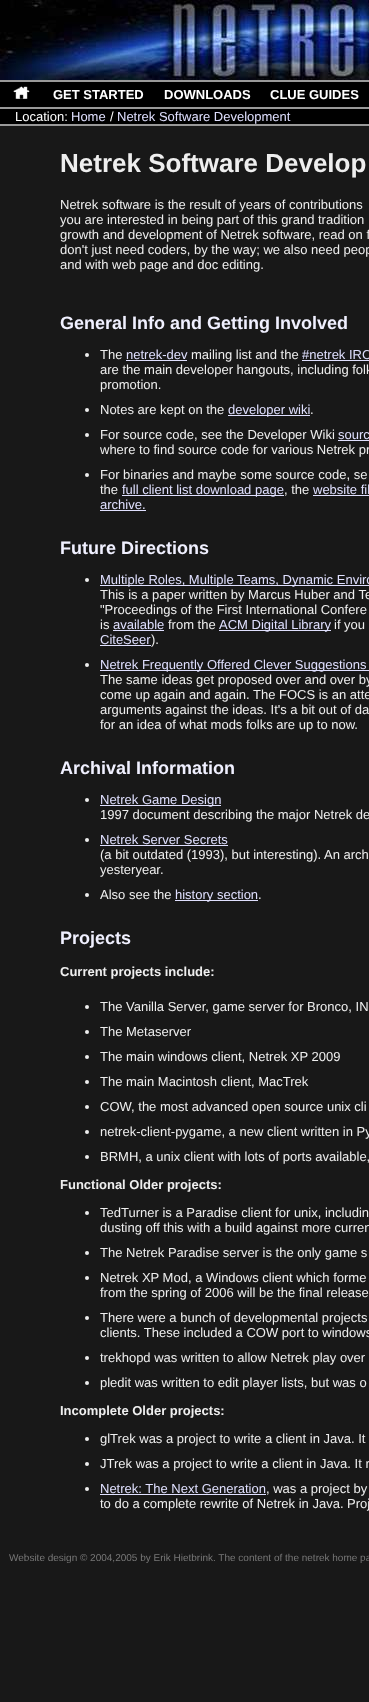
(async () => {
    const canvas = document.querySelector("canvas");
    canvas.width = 369;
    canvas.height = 1702;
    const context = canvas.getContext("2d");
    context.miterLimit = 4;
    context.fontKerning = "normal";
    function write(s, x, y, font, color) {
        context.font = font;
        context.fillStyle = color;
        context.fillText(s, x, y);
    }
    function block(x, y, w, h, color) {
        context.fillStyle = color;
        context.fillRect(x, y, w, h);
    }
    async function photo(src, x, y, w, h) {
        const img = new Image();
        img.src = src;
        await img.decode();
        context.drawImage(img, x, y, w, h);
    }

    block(0, 0, 369, 1702, "rgb(24, 24, 24)");
    await photo("media/1.png", 0, 0, 369, 80);
    block(0, 82, 369, 25, "rgb(0, 0, 0)");
    block(0, 80, 369, 2, "rgb(153, 153, 153)");
    block(0, 107, 369, 2, "rgb(153, 153, 153)");
    await photo("media/2.png", 13, 86, 17, 13);
    write("GET STARTED", 53, 99, "bold 13px Liberation Sans", "rgb(255, 255, 255)");
    write("DOWNLOADS", 164, 99, "bold 13px Liberation Sans", "rgb(255, 255, 255)");
    write("CLUE GUIDES", 270, 99, "bold 13px Liberation Sans", "rgb(255, 255, 255)");
    block(0, 109, 369, 15, "rgb(0, 0, 0)");
    block(0, 124, 369, 2, "rgb(153, 153, 153)");
    write("Location:", 15, 121, "13px Liberation Sans", "rgb(255, 255, 255)");
    write("Home", 71, 121, "13px Liberation Sans", "rgb(224, 224, 255)");
    write("/", 110, 121, "13px Liberation Sans", "rgb(255, 255, 255)");
    write("Netrek Software Development", 117, 121, "13px Liberation Sans", "rgb(224, 224, 255)");
    write("Netrek Software Develop", 60, 172, "bold 26px Liberation Sans", "rgb(238, 238, 238)");
    write("Netrek software is the result of years of contributions", 60, 209, "13px Liberation Sans", "rgb(238, 238, 238)");
    write("you are interested in being part of this grand tradition", 60, 224, "13px Liberation Sans", "rgb(238, 238, 238)");
    write("growth and development of Netrek software, read on f", 60, 239, "13px Liberation Sans", "rgb(238, 238, 238)");
    write("don't just need coders, by the way; we also need peop", 60, 254, "13px Liberation Sans", "rgb(238, 238, 238)");
    write("and with web page and doc editing.", 60, 269, "13px Liberation Sans", "rgb(238, 238, 238)");
    write("General Info and Getting Involved", 60, 329, "bold 18px Liberation Sans", "rgb(240, 240, 255)");
    context.fillStyle = "rgb(238, 238, 238)";
    context.beginPath();
    context.arc(87, 355, 2, 0, Math.PI * 2);
    context.fill();
    write("The", 100, 359, "13px Liberation Sans", "rgb(238, 238, 238)");
    write("netrek-dev", 126, 359, "13px Liberation Sans", "rgb(224, 224, 255)");
    block(126, 360, 61, 1, "rgb(224, 224, 255)");
    write("mailing list and the", 191, 359, "13px Liberation Sans", "rgb(238, 238, 238)");
    write("#netrek IRC", 302, 359, "13px Liberation Sans", "rgb(224, 224, 255)");
    block(302, 360, 67, 1, "rgb(224, 224, 255)");
    write("are the main developer hangouts, including folk", 100, 374, "13px Liberation Sans", "rgb(238, 238, 238)");
    write("promotion.", 100, 389, "13px Liberation Sans", "rgb(238, 238, 238)");
    context.beginPath();
    context.arc(87, 410, 2, 0, Math.PI * 2);
    context.fill();
    write("Notes are kept on the", 100, 414, "13px Liberation Sans", "rgb(238, 238, 238)");
    block(228, 415, 82, 1, "rgb(224, 224, 255)");
    write("developer wiki", 228, 414, "13px Liberation Sans", "rgb(224, 224, 255)");
    write(".", 310, 414, "13px Liberation Sans", "rgb(238, 238, 238)");
    context.beginPath();
    context.arc(87, 435, 2, 0, Math.PI * 2);
    context.fill();
    write("For source code, see the Developer Wiki", 100, 439, "13px Liberation Sans", "rgb(238, 238, 238)");
    write("sourc", 338, 439, "13px Liberation Sans", "rgb(224, 224, 255)");
    block(338, 440, 31, 1, "rgb(224, 224, 255)");
    write("where to find source code for various Netrek pr", 100, 454, "13px Liberation Sans", "rgb(238, 238, 238)");
    context.beginPath();
    context.arc(87, 475, 2, 0, Math.PI * 2);
    context.fill();
    write("For binaries and maybe some source code, se", 100, 479, "13px Liberation Sans", "rgb(238, 238, 238)");
    write("the", 100, 494, "13px Liberation Sans", "rgb(238, 238, 238)");
    block(122, 495, 162, 1, "rgb(224, 224, 255)");
    write("full client list download page", 122, 494, "13px Liberation Sans", "rgb(224, 224, 255)");
    write(", the", 284, 494, "13px Liberation Sans", "rgb(238, 238, 238)");
    write("website fil", 313, 494, "13px Liberation Sans", "rgb(224, 224, 255)");
    block(313, 495, 56, 1, "rgb(224, 224, 255)");
    write("archive.", 100, 509, "13px Liberation Sans", "rgb(224, 224, 255)");
    block(100, 510, 46, 1, "rgb(224, 224, 255)");
    write("Future Directions", 60, 554, "bold 18px Liberation Sans", "rgb(240, 240, 255)");
    context.fillStyle = "rgb(238, 238, 238)";
    context.beginPath();
    context.arc(87, 580, 2, 0, Math.PI * 2);
    context.fill();
    block(100, 585, 269, 1, "rgb(224, 224, 255)");
    write("Multiple Roles, Multiple Teams, Dynamic Enviro", 100, 584, "13px Liberation Sans", "rgb(224, 224, 255)");
    write("This is a paper written by Marcus Huber and Te", 100, 599, "13px Liberation Sans", "rgb(238, 238, 238)");
    write("\"Proceedings of the First International Confere", 100, 614, "13px Liberation Sans", "rgb(238, 238, 238)");
    write("is", 100, 629, "13px Liberation Sans", "rgb(238, 238, 238)");
    write("available", 113, 629, "13px Liberation Sans", "rgb(224, 224, 255)");
    block(113, 630, 51, 1, "rgb(224, 224, 255)");
    write("from the", 168, 629, "13px Liberation Sans", "rgb(238, 238, 238)");
    block(219, 630, 112, 1, "rgb(224, 224, 255)");
    write("ACM Digital Library", 219, 629, "13px Liberation Sans", "rgb(224, 224, 255)");
    write("if you", 334, 629, "13px Liberation Sans", "rgb(238, 238, 238)");
    write("CiteSeer", 100, 644, "13px Liberation Sans", "rgb(224, 224, 255)");
    block(100, 645, 51, 1, "rgb(224, 224, 255)");
    write(").", 151, 644, "13px Liberation Sans", "rgb(238, 238, 238)");
    context.beginPath();
    context.arc(87, 665, 2, 0, Math.PI * 2);
    context.fill();
    block(100, 670, 269, 1, "rgb(224, 224, 255)");
    write("Netrek Frequently Offered Clever Suggestions", 100, 669, "13px Liberation Sans", "rgb(224, 224, 255)");
    write("The same ideas get proposed over and over by", 100, 684, "13px Liberation Sans", "rgb(238, 238, 238)");
    write("come up again and again. The FOCS is an atte", 100, 699, "13px Liberation Sans", "rgb(238, 238, 238)");
    write("arguments against the ideas. It's a bit out of da", 100, 714, "13px Liberation Sans", "rgb(238, 238, 238)");
    write("for an idea of what mods folks are up to now.", 100, 729, "13px Liberation Sans", "rgb(238, 238, 238)");
    write("Archival Information", 60, 774, "bold 18px Liberation Sans", "rgb(240, 240, 255)");
    context.fillStyle = "rgb(238, 238, 238)";
    context.beginPath();
    context.arc(87, 800, 2, 0, Math.PI * 2);
    context.fill();
    block(100, 805, 121, 1, "rgb(224, 224, 255)");
    write("Netrek Game Design", 100, 804, "13px Liberation Sans", "rgb(224, 224, 255)");
    write("1997 document describing the major Netrek de", 100, 819, "13px Liberation Sans", "rgb(238, 238, 238)");
    context.beginPath();
    context.arc(87, 840, 2, 0, Math.PI * 2);
    context.fill();
    write("Netrek Server Secrets", 100, 844, "13px Liberation Sans", "rgb(224, 224, 255)");
    block(100, 845, 128, 1, "rgb(224, 224, 255)");
    write("(a bit outdated (1993), but interesting). An arch", 100, 859, "13px Liberation Sans", "rgb(238, 238, 238)");
    write("yesteryear.", 100, 874, "13px Liberation Sans", "rgb(238, 238, 238)");
    context.beginPath();
    context.arc(87, 895, 2, 0, Math.PI * 2);
    context.fill();
    write("Also see the", 100, 899, "13px Liberation Sans", "rgb(238, 238, 238)");
    block(175, 900, 83, 1, "rgb(224, 224, 255)");
    write("history section", 175, 899, "13px Liberation Sans", "rgb(224, 224, 255)");
    write(".", 258, 899, "13px Liberation Sans", "rgb(238, 238, 238)");
    write("Projects", 60, 944, "bold 18px Liberation Sans", "rgb(240, 240, 255)");
    write("Current projects include:", 60, 976, "bold 13px Liberation Sans", "rgb(238, 238, 238)");
    context.beginPath();
    context.arc(87, 1007, 2, 0, Math.PI * 2);
    context.fill();
    write("The Vanilla Server, game server for Bronco, IN", 100, 1011, "13px Liberation Sans", "rgb(238, 238, 238)");
    context.beginPath();
    context.arc(87, 1032, 2, 0, Math.PI * 2);
    context.fill();
    write("The Metaserver", 100, 1036, "13px Liberation Sans", "rgb(238, 238, 238)");
    context.beginPath();
    context.arc(87, 1057, 2, 0, Math.PI * 2);
    context.fill();
    write("The main windows client, Netrek XP 2009", 100, 1061, "13px Liberation Sans", "rgb(238, 238, 238)");
    context.beginPath();
    context.arc(87, 1082, 2, 0, Math.PI * 2);
    context.fill();
    write("The main Macintosh client, MacTrek", 100, 1086, "13px Liberation Sans", "rgb(238, 238, 238)");
    context.beginPath();
    context.arc(87, 1107, 2, 0, Math.PI * 2);
    context.fill();
    write("COW, the most advanced open source unix cli", 100, 1111, "13px Liberation Sans", "rgb(238, 238, 238)");
    context.beginPath();
    context.arc(87, 1132, 2, 0, Math.PI * 2);
    context.fill();
    write("netrek-client-pygame, a new client written in Py", 100, 1136, "13px Liberation Sans", "rgb(238, 238, 238)");
    context.beginPath();
    context.arc(87, 1157, 2, 0, Math.PI * 2);
    context.fill();
    write("BRMH, a unix client with lots of ports available,", 100, 1161, "13px Liberation Sans", "rgb(238, 238, 238)");
    write("Functional Older projects:", 60, 1189, "bold 13px Liberation Sans", "rgb(238, 238, 238)");
    context.beginPath();
    context.arc(87, 1213, 2, 0, Math.PI * 2);
    context.fill();
    write("TedTurner is a Paradise client for unix, includin", 100, 1217, "13px Liberation Sans", "rgb(238, 238, 238)");
    write("dusting off this with a build against more curren", 100, 1232, "13px Liberation Sans", "rgb(238, 238, 238)");
    context.beginPath();
    context.arc(87, 1253, 2, 0, Math.PI * 2);
    context.fill();
    write("The Netrek Paradise server is the only game s", 100, 1257, "13px Liberation Sans", "rgb(238, 238, 238)");
    context.beginPath();
    context.arc(87, 1278, 2, 0, Math.PI * 2);
    context.fill();
    write("Netrek XP Mod, a Windows client which forme", 100, 1282, "13px Liberation Sans", "rgb(238, 238, 238)");
    write("from the spring of 2006 will be the final release", 100, 1297, "13px Liberation Sans", "rgb(238, 238, 238)");
    context.beginPath();
    context.arc(87, 1318, 2, 0, Math.PI * 2);
    context.fill();
    write("There were a bunch of developmental projects", 100, 1322, "13px Liberation Sans", "rgb(238, 238, 238)");
    write("clients. These included a COW port to windows", 100, 1337, "13px Liberation Sans", "rgb(238, 238, 238)");
    context.beginPath();
    context.arc(87, 1358, 2, 0, Math.PI * 2);
    context.fill();
    write("trekhopd was written to allow Netrek play over", 100, 1362, "13px Liberation Sans", "rgb(238, 238, 238)");
    context.beginPath();
    context.arc(87, 1383, 2, 0, Math.PI * 2);
    context.fill();
    write("pledit was written to edit player lists, but was o", 100, 1387, "13px Liberation Sans", "rgb(238, 238, 238)");
    write("Incomplete Older projects:", 60, 1415, "bold 13px Liberation Sans", "rgb(238, 238, 238)");
    context.beginPath();
    context.arc(87, 1439, 2, 0, Math.PI * 2);
    context.fill();
    write("glTrek was a project to write a client in Java. It", 100, 1443, "13px Liberation Sans", "rgb(238, 238, 238)");
    context.beginPath();
    context.arc(87, 1464, 2, 0, Math.PI * 2);
    context.fill();
    write("JTrek was a project to write a client in Java. It r", 100, 1468, "13px Liberation Sans", "rgb(238, 238, 238)");
    context.beginPath();
    context.arc(87, 1489, 2, 0, Math.PI * 2);
    context.fill();
    write("Netrek: The Next Generation", 100, 1493, "13px Liberation Sans", "rgb(224, 224, 255)");
    block(100, 1494, 166, 1, "rgb(224, 224, 255)");
    write(", was a project by", 266, 1493, "13px Liberation Sans", "rgb(238, 238, 238)");
    write("to do a complete rewrite of Netrek in Java. Proj", 100, 1508, "13px Liberation Sans", "rgb(238, 238, 238)");
    write("Website design © 2004,2005 by Erik Hietbrink. The content of the netrek home pa", 9, 1561, "10px Liberation Sans", "rgb(119, 119, 119)");
})();
